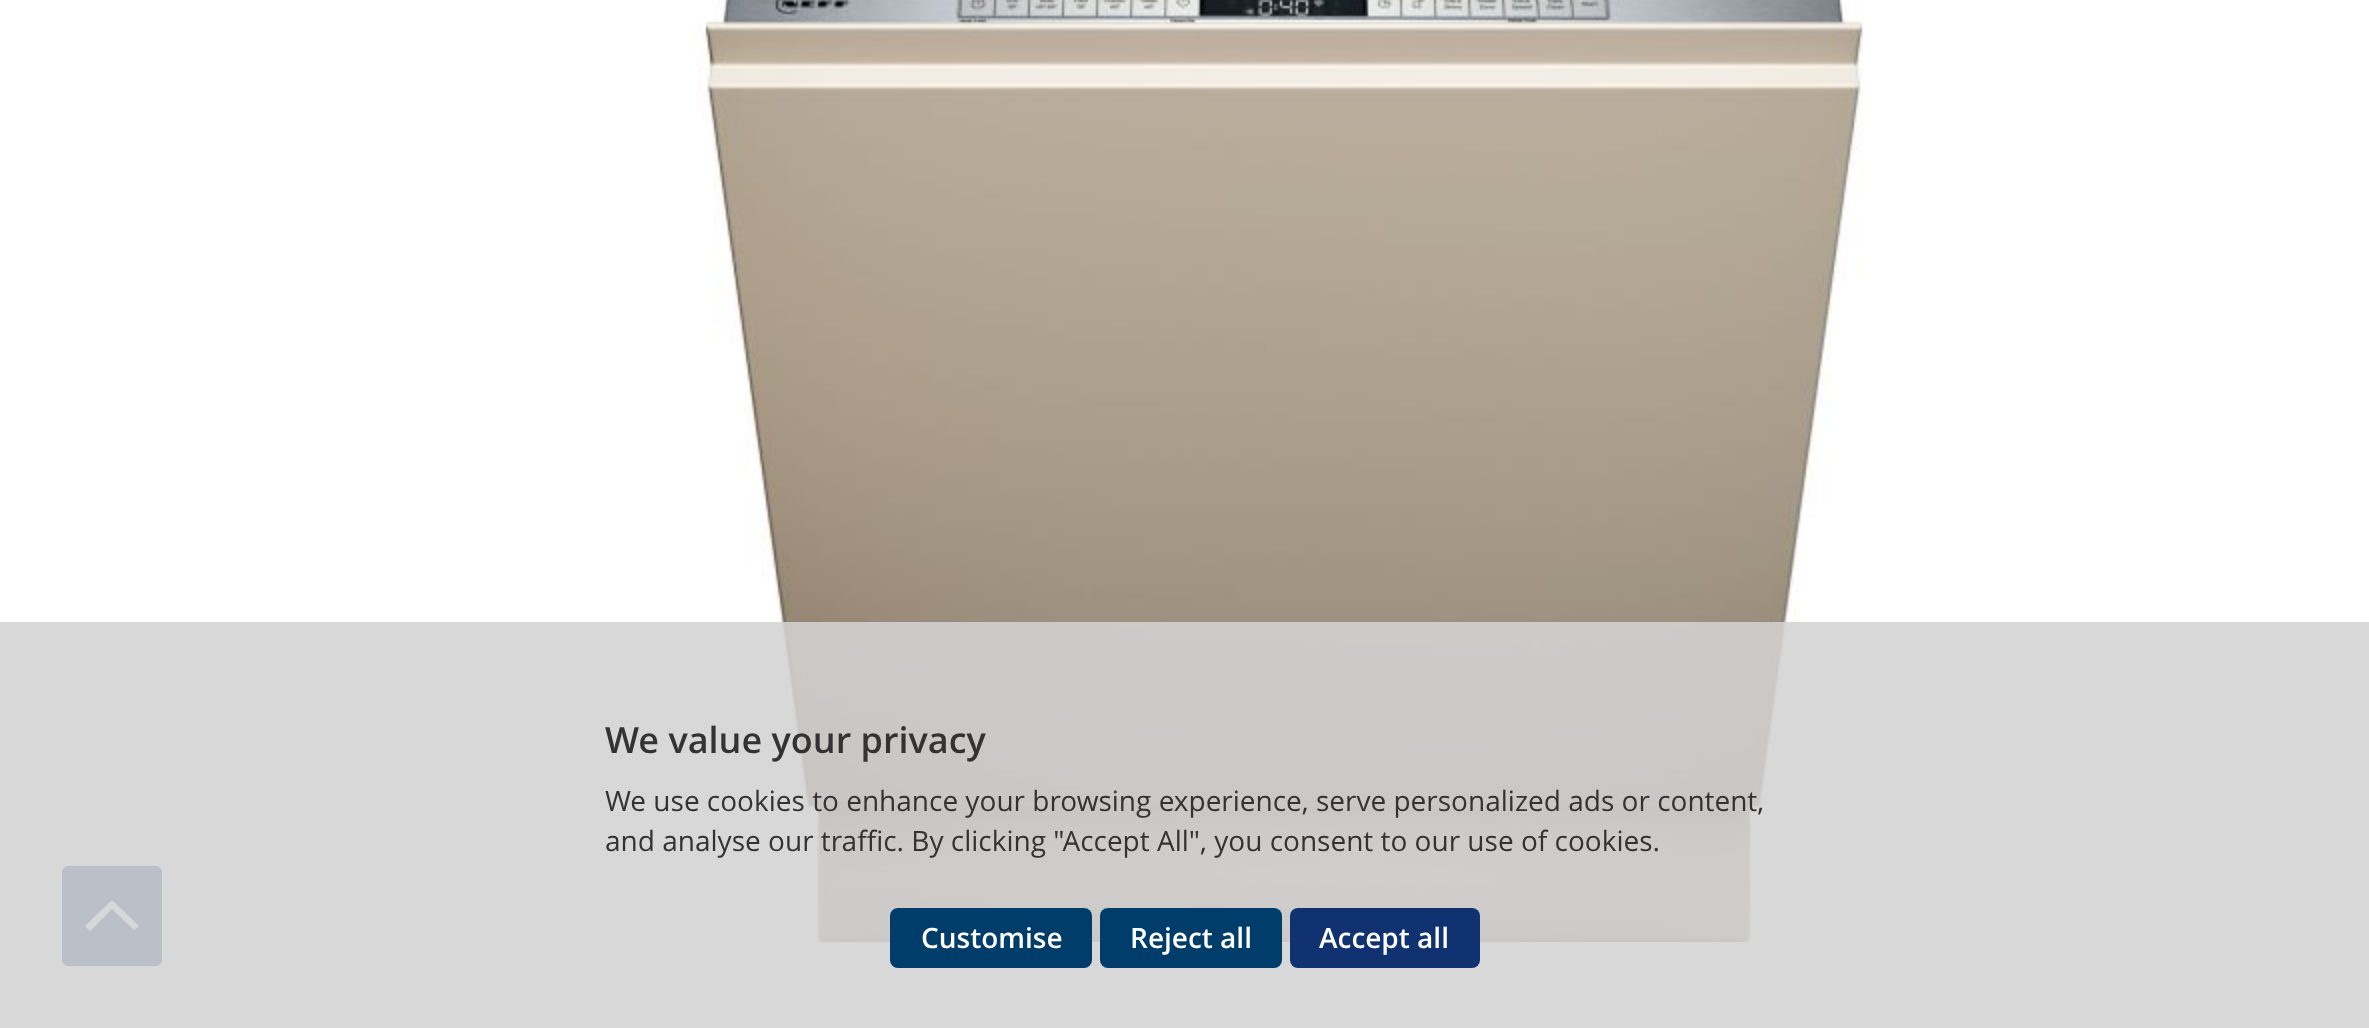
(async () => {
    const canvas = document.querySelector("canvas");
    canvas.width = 2369;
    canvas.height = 1028;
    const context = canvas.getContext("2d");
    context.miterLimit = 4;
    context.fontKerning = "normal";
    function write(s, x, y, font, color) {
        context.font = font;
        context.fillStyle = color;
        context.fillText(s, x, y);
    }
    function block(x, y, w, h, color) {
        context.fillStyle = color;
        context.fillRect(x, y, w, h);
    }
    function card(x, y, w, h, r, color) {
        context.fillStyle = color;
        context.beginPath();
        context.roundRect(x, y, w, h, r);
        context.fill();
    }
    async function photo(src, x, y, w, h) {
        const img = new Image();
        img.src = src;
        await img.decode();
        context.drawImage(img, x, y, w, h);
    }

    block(0, 0, 2369, 1028, "rgb(255, 255, 255)");
    await photo("media/1.png", 689, 0, 1175, 942);
    context.fillStyle = "rgb(16, 50, 113)";
    context.beginPath();
    context.roundRect(61, 865, 102, 102, 7);
    context.fill();
    context.strokeStyle = "rgb(255, 255, 255)";
    context.lineWidth = 2;
    context.stroke();
    context.fillStyle = "rgb(255, 255, 255)";
    context.beginPath();
    context.moveTo(112, 909);
    context.lineTo(134, 930);
    context.lineTo(139, 926);
    context.lineTo(112, 900);
    context.lineTo(85, 926);
    context.lineTo(90, 931);
    context.closePath();
    context.fill();
    block(0, 622, 2369, 406, "rgba(211, 211, 211, 0.88)");
    write("We value your privacy", 605, 753, "600 36px Open Sans", "rgb(51, 51, 51)");
    write("We use cookies to enhance your browsing experience, serve personalized ads or content,", 605, 811, "28px Open Sans", "rgb(51, 51, 51)");
    write("and analyse our traffic. By clicking \"Accept All\", you consent to our use of cookies.", 605, 851, "28px Open Sans", "rgb(51, 51, 51)");
    card(890, 908, 202, 60, 8, "rgb(0, 61, 106)");
    write("Customise", 921, 948, "600 28px Open Sans", "rgb(255, 255, 255)");
    card(1100, 908, 182, 60, 8, "rgb(0, 61, 106)");
    write("Reject all", 1130, 948, "600 28px Open Sans", "rgb(255, 255, 255)");
    card(1290, 908, 190, 60, 8, "rgb(16, 50, 113)");
    write("Accept all", 1319, 948, "600 28px Open Sans", "rgb(255, 255, 255)");
})();
